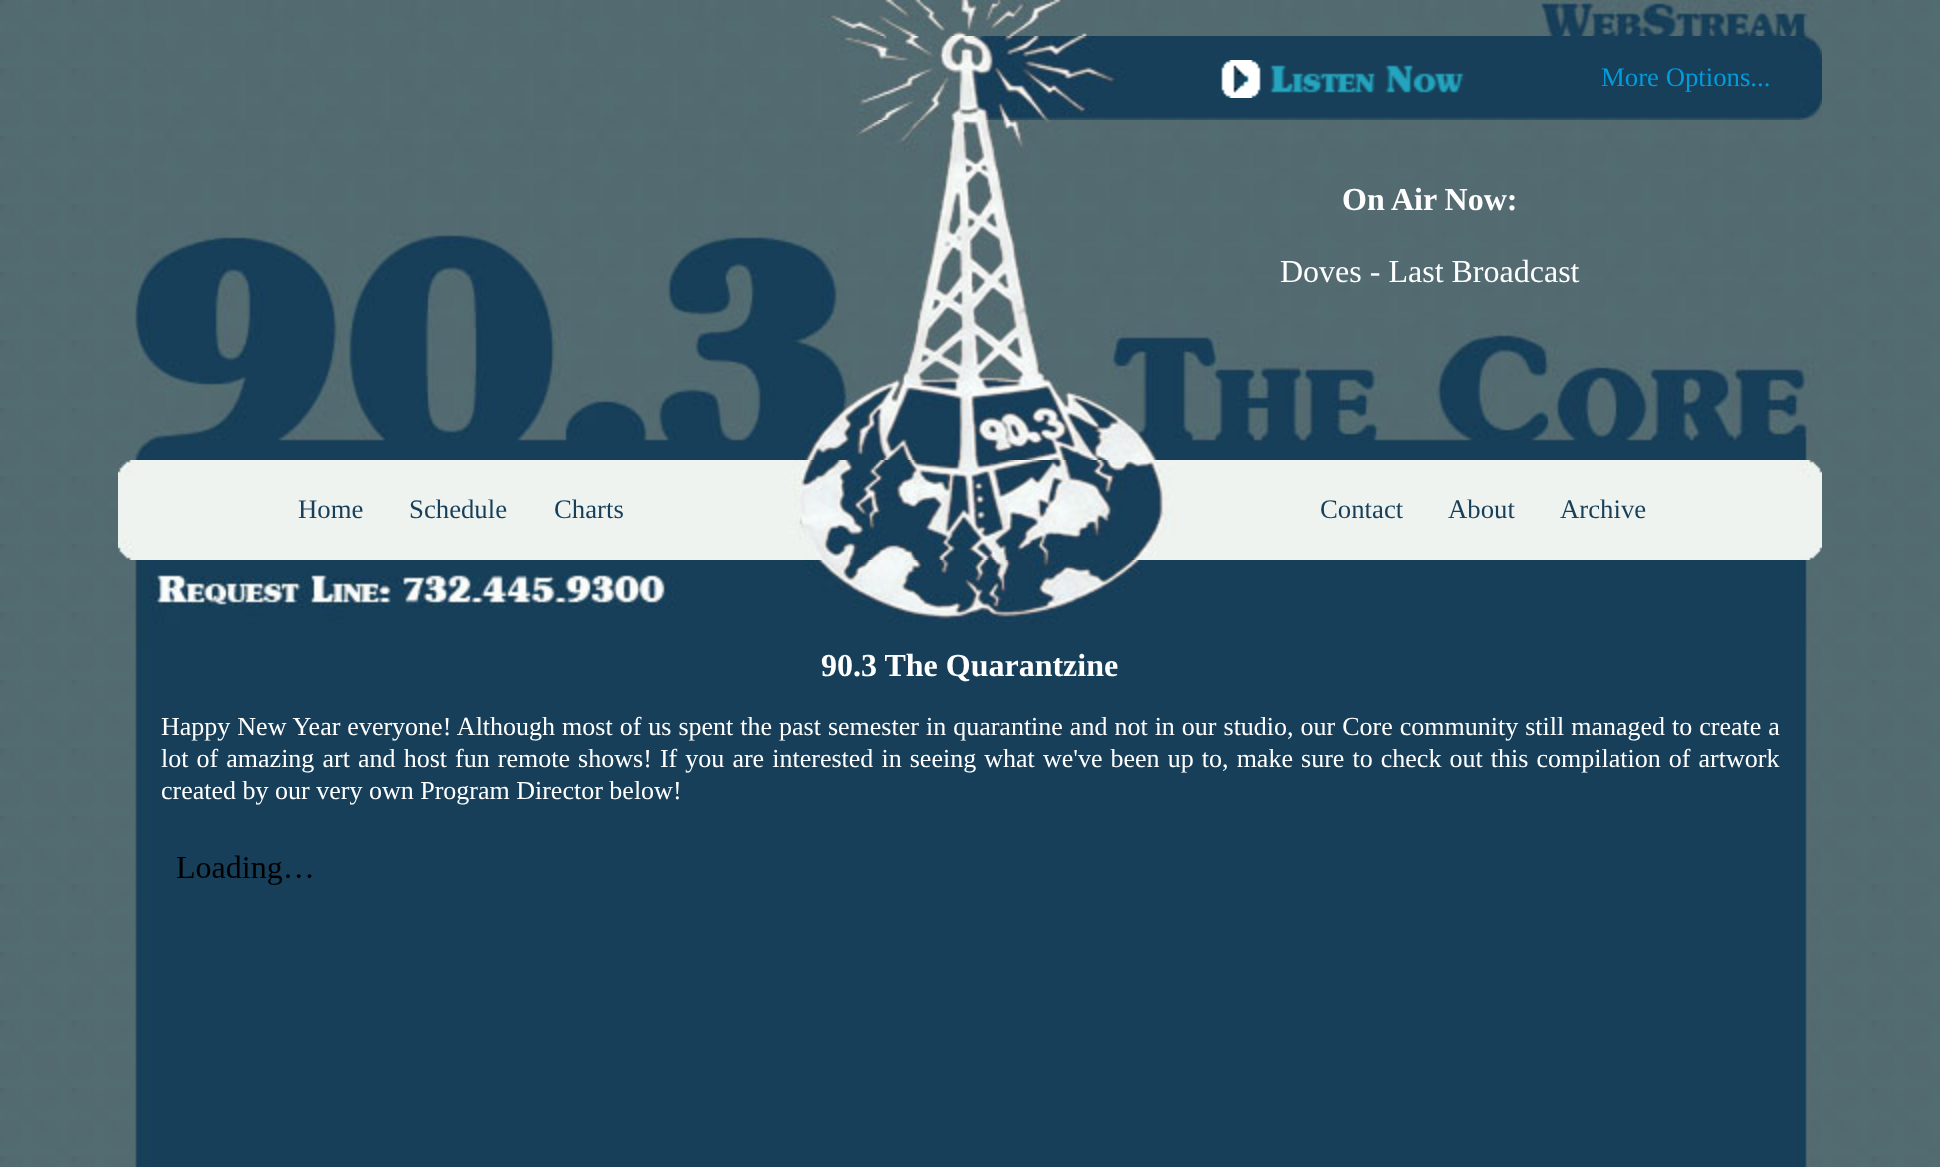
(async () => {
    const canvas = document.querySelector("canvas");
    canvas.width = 1940;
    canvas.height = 1167;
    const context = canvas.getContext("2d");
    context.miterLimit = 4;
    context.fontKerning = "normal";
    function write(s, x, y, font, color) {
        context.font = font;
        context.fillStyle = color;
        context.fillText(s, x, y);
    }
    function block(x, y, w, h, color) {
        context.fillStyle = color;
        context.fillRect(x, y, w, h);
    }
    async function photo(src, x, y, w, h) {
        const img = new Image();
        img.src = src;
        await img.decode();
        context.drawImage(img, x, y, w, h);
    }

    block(0, 0, 1940, 1167, "rgb(255, 255, 255)");
    await photo("media/1.png", 0, 0, 1940, 1167);
    await photo("media/2.png", 145, 0, 1669, 36);
    await photo("media/3.png", 145, 36, 1677, 84);
    await photo("media/4.png", 1218, 60, 247, 38);
    write("More Options...", 1601, 86, "26.75px Liberation Serif", "rgb(0, 156, 219)");
    await photo("media/5.png", 134, 120, 1680, 340);
    write("On Air Now:", 1342, 210, "bold 32px Liberation Serif", "rgb(255, 255, 255)");
    write("Doves - Last Broadcast", 1280, 282, "32px Liberation Serif", "rgb(255, 255, 255)");
    await photo("media/6.png", 118, 460, 1704, 100);
    write("Home", 298, 518, "26.75px Liberation Serif", "rgb(23, 63, 90)");
    write("Schedule", 409, 518, "26.75px Liberation Serif", "rgb(23, 63, 90)");
    write("Charts", 554, 518, "26.75px Liberation Serif", "rgb(23, 63, 90)");
    write("Contact", 1320, 518, "26.75px Liberation Serif", "rgb(23, 63, 90)");
    write("About", 1448, 518, "26.75px Liberation Serif", "rgb(23, 63, 90)");
    write("Archive", 1560, 518, "26.75px Liberation Serif", "rgb(23, 63, 90)");
    await photo("media/7.png", 135, 560, 1676, 88);
    await photo("media/8.png", 134, 648, 1677, 519);
    write("90.3 The Quarantzine", 821, 676, "bold 32px Liberation Serif", "rgb(255, 255, 255)");
    context.wordSpacing = "0.5px";
    write("Happy New Year everyone! Although most of us spent the past semester in quarantine and not in our studio, our Core community still managed to create a", 161, 735, "26px Liberation Serif", "rgb(255, 255, 255)");
    context.wordSpacing = "1.6px";
    write("lot of amazing art and host fun remote shows! If you are interested in seeing what we've been up to, make sure to check out this compilation of artwork", 161, 767, "26px Liberation Serif", "rgb(255, 255, 255)");
    context.wordSpacing = "0px";
    write("created by our very own Program Director below!", 161, 799, "26px Liberation Serif", "rgb(255, 255, 255)");
    await photo("media/9.png", 176, 855, 136, 30);
})();
